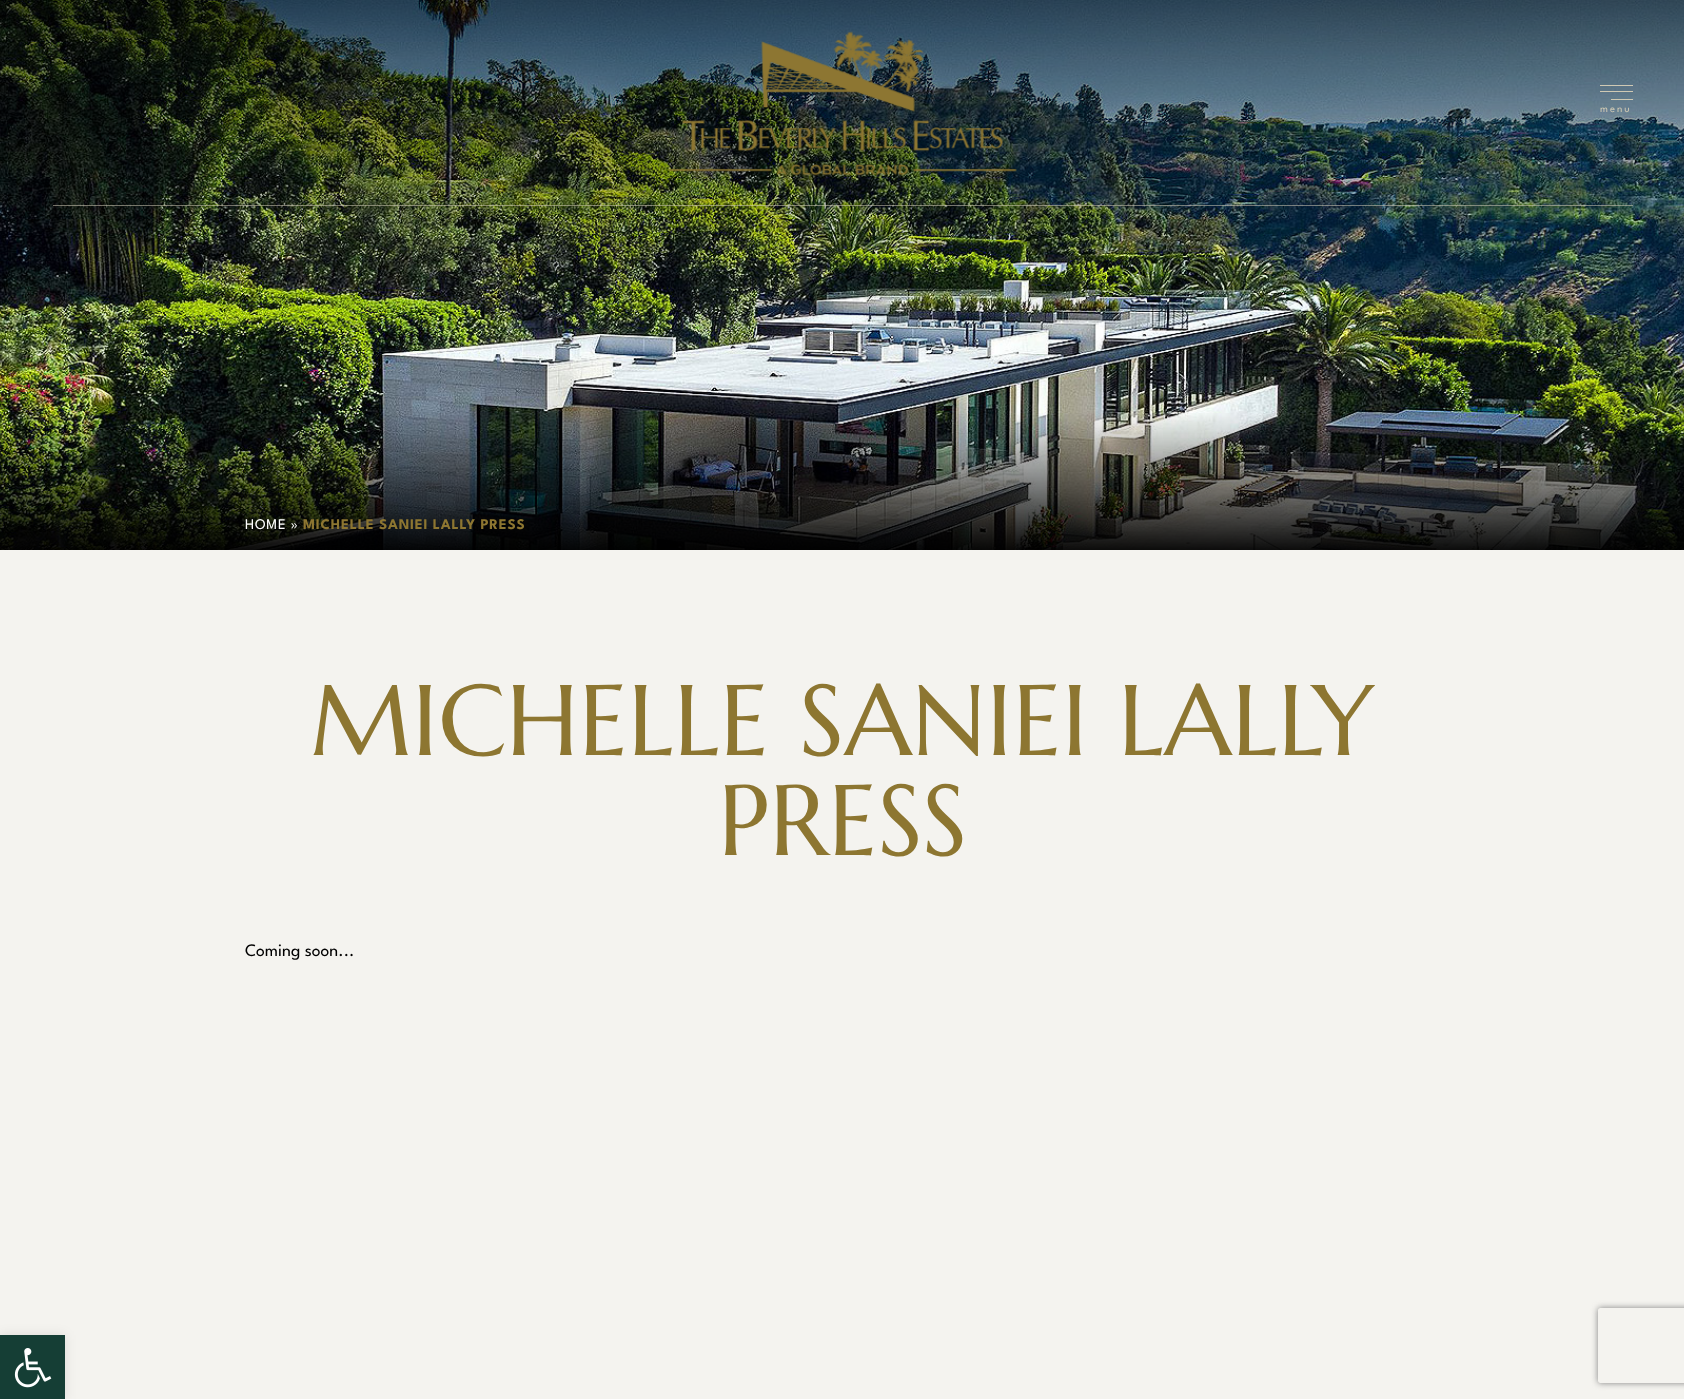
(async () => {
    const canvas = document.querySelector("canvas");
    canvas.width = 1684;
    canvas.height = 1399;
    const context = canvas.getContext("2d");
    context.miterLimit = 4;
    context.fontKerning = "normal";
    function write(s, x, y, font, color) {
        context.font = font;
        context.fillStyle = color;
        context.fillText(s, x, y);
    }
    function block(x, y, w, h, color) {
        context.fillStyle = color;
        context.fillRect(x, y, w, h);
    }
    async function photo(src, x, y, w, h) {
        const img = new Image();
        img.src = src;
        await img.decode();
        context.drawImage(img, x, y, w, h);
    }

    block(0, 0, 1684, 1399, "rgb(244, 243, 239)");
    await photo("media/2.png", 0, 0, 1684, 550);
    await photo("media/1.png", 668, 31, 349, 145);
    block(1600, 85, 33, 1, "rgb(207, 201, 180)");
    block(1600, 91, 33, 1, "rgb(207, 201, 180)");
    block(1611, 99, 22, 1, "rgb(207, 201, 180)");
    context.letterSpacing = "2px";
    write("menu", 1600, 112, "10.5px League Spartan", "rgb(207, 201, 180)");
    block(53, 205, 1580, 1, "rgba(207, 201, 180, 0.55)");
    context.letterSpacing = "0.75px";
    write("HOME »", 245, 529, "14.75px League Spartan", "rgb(255, 255, 255)");
    write("MICHELLE SANIEI LALLY PRESS", 303, 529, "bold 14.75px League Spartan", "rgb(141, 118, 49)");
    context.letterSpacing = "0px";
    write("MICHELLE SANIEI LALLY", 310, 755, "100px Marcellus", "rgb(141, 118, 49)");
    write("PRESS", 718, 855, "100px Marcellus", "rgb(141, 118, 49)");
    write("Coming soon...", 245, 956, "17.5px League Spartan", "rgb(0, 0, 0)");
    context.fillStyle = "rgba(0, 0, 0, 0.1)";
    context.filter = "blur(6px)";
    context.beginPath();
    context.rect(0, 1335, 65, 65);
    context.fill();
    context.filter = "none";
    block(0, 1335, 65, 64, "rgb(21, 62, 53)");
    await photo("media/3.png", 14, 1348, 38, 40);
    context.save();
    context.beginPath();
    context.moveTo(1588, 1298);
    context.lineTo(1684, 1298);
    context.lineTo(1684, 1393);
    context.lineTo(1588, 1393);
    context.closePath();
    context.moveTo(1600.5, 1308);
    context.lineTo(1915.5, 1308);
    context.bezierCurveTo(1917, 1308, 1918, 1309, 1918, 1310.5);
    context.lineTo(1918, 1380.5);
    context.bezierCurveTo(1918, 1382, 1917, 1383, 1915.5, 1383);
    context.lineTo(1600.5, 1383);
    context.bezierCurveTo(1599, 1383, 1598, 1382, 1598, 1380.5);
    context.lineTo(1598, 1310.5);
    context.bezierCurveTo(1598, 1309, 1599, 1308, 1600.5, 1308);
    context.closePath();
    context.clip("evenodd");
    context.fillStyle = "rgb(128, 128, 128)";
    context.filter = "blur(3px)";
    context.beginPath();
    context.roundRect(1598, 1308, 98, 75, 2.5);
    context.fill();
    context.filter = "none";
    context.restore();
})();
